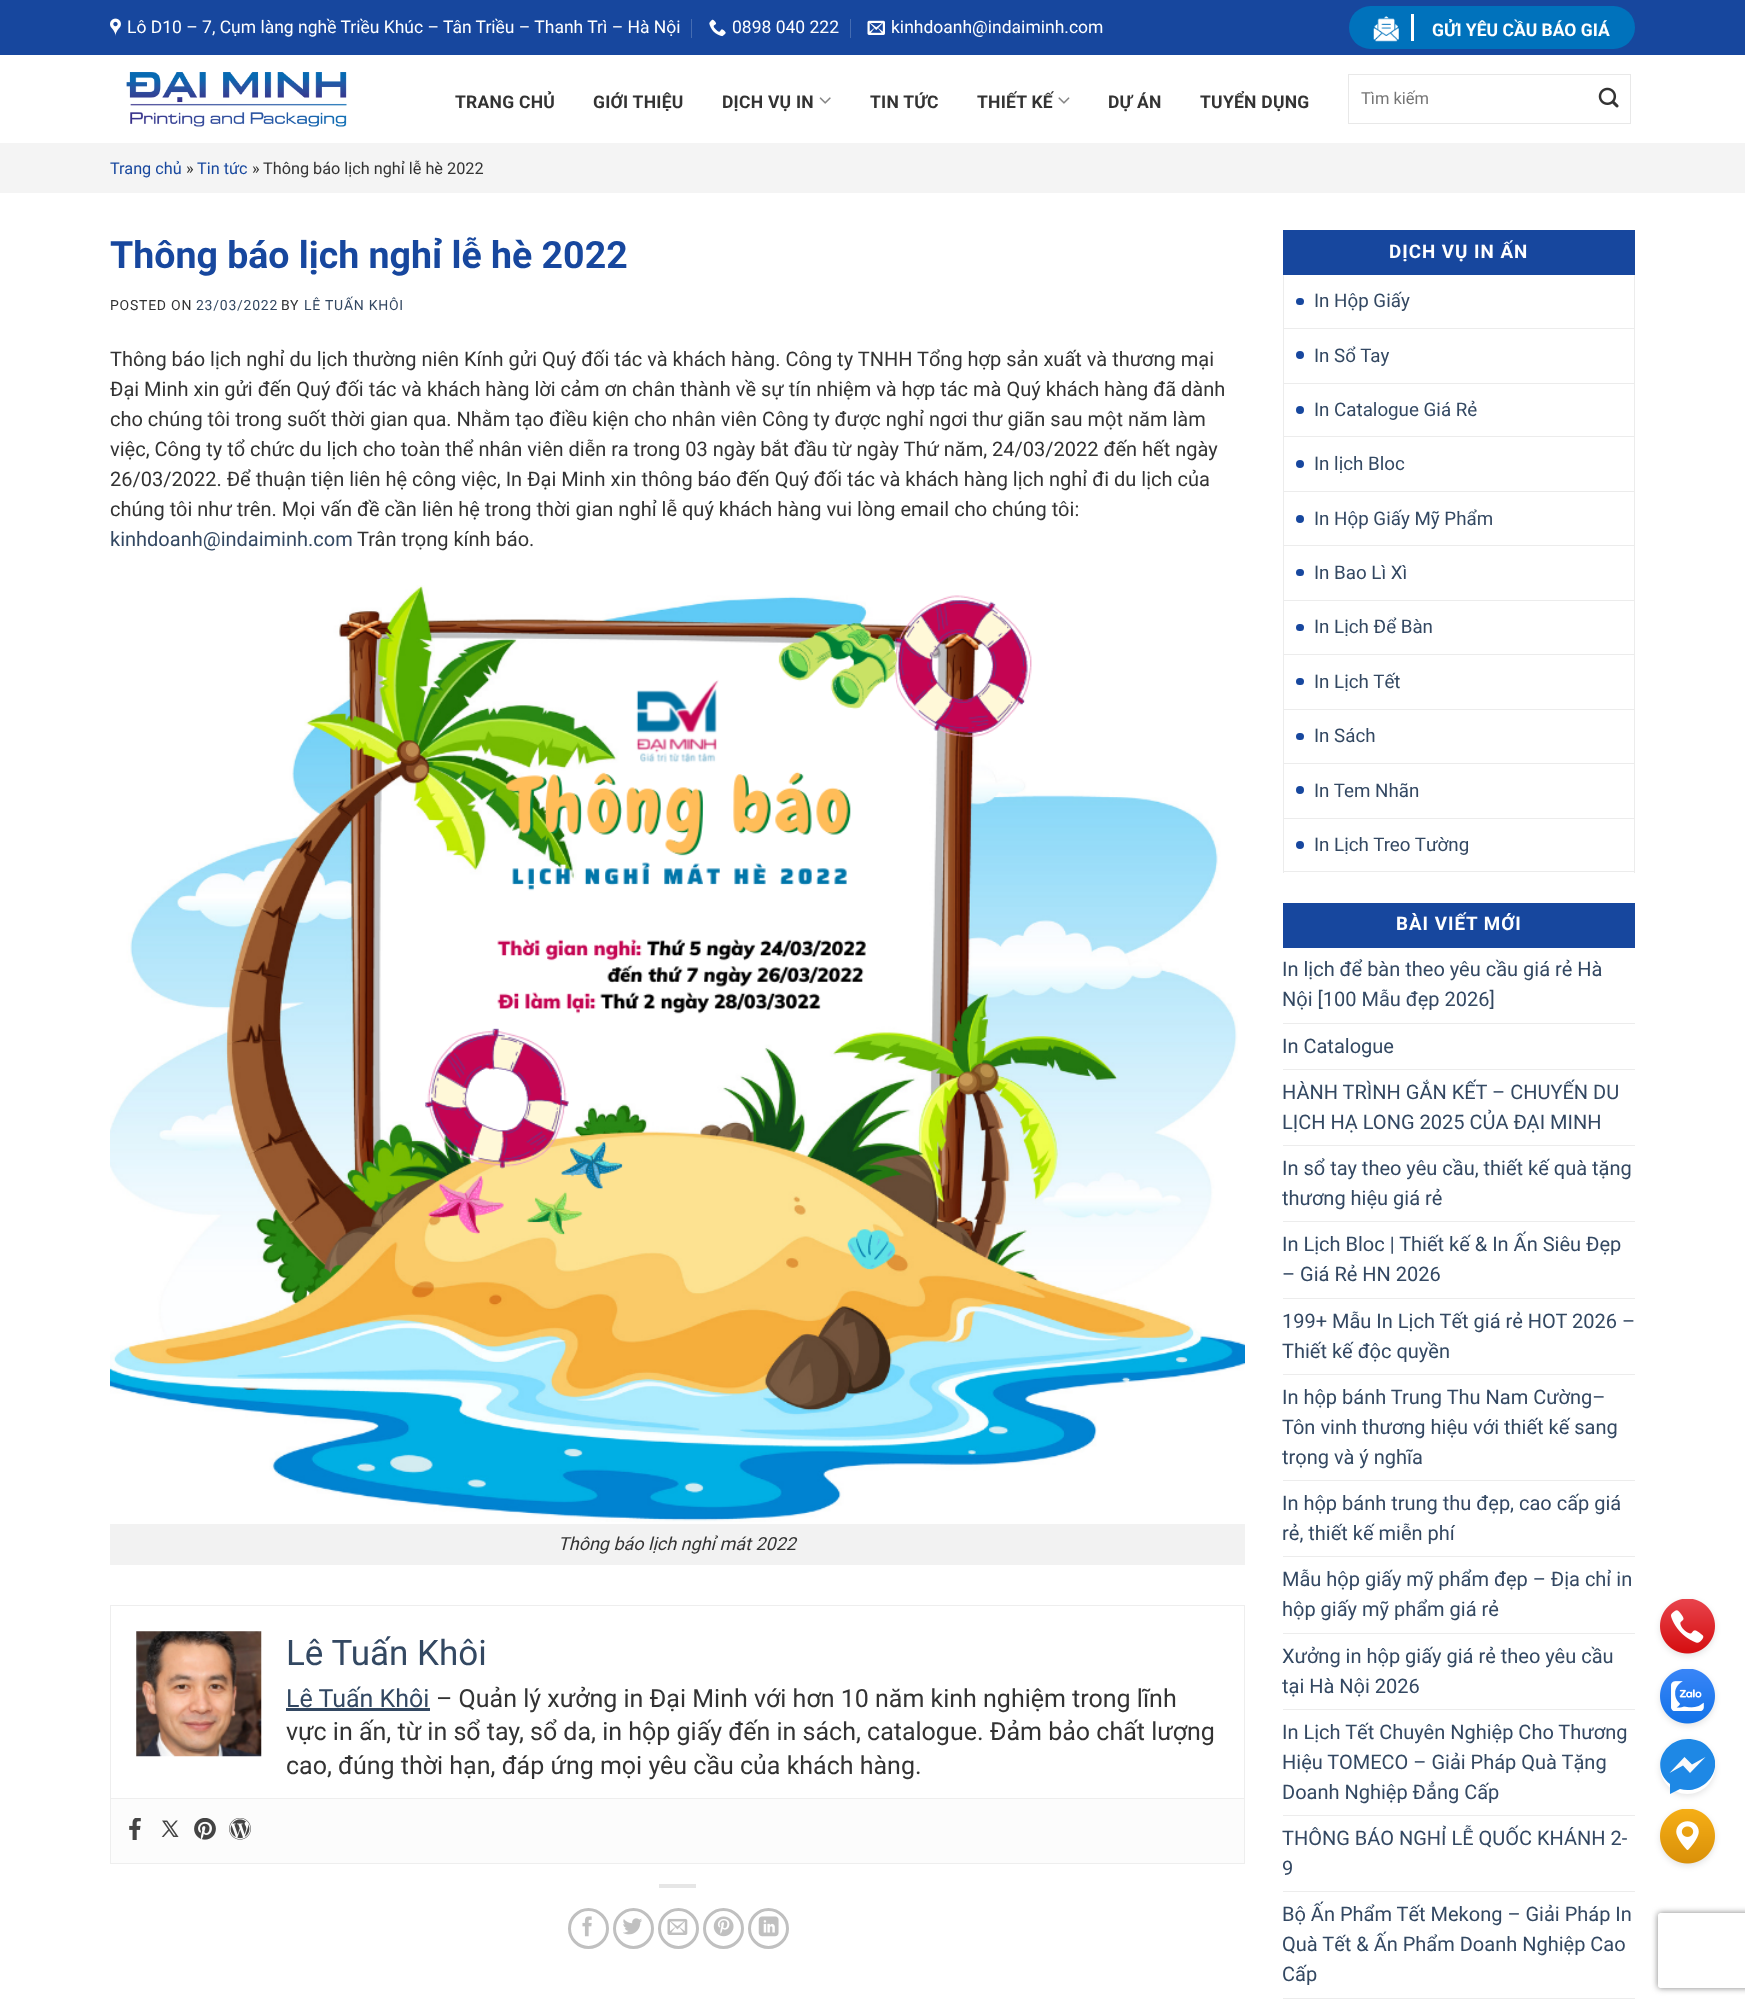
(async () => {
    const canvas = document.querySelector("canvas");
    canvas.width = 1745;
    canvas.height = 2004;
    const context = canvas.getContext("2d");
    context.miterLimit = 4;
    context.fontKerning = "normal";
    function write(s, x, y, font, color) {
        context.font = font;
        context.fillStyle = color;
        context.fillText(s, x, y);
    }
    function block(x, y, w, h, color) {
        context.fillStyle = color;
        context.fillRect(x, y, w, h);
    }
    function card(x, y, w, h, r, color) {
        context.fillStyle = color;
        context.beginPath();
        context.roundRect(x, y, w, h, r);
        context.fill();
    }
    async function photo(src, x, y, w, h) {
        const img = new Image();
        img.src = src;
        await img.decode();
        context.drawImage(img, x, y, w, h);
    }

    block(0, 0, 1745, 2004, "rgb(255, 255, 255)");
    block(0, 0, 1745, 55, "rgb(23, 71, 158)");
    await photo("media/1.png", 110, 18, 11, 18);
    write("Lô D10 – 7, Cụm làng nghề Triều Khúc – Tân Triều – Thanh Trì – Hà Nội", 127, 33, "17.5px Roboto", "rgb(255, 255, 255)");
    block(691, 19, 1, 19, "rgb(69, 108, 177)");
    await photo("media/2.png", 709, 19, 17, 18);
    write("0898 040 222", 732, 33, "17.5px Roboto", "rgb(255, 255, 255)");
    block(850, 19, 1, 19, "rgb(69, 108, 177)");
    await photo("media/3.png", 867, 20, 18, 15);
    write("kinhdoanh@indaiminh.com", 891, 33, "17.5px Roboto", "rgb(255, 255, 255)");
    card(1349, 6, 286, 43, 21.5, "rgb(0, 114, 188)");
    block(1411, 14, 3, 27, "rgb(255, 255, 255)");
    await photo("media/4.png", 1373, 16, 26, 26);
    write("GỬI YÊU CẦU BÁO GIÁ", 1432, 36, "bold 17.5px Roboto", "rgb(255, 255, 255)");
    await photo("media/5.png", 126, 72, 221, 55);
    context.letterSpacing = "0.25px";
    write("TRANG CHỦ", 455, 108, "bold 17.5px Roboto", "rgb(51, 51, 51)");
    write("GIỚI THIỆU", 593, 108, "bold 17.5px Roboto", "rgb(51, 51, 51)");
    write("DỊCH VỤ IN", 722, 108, "bold 17.5px Roboto", "rgb(51, 51, 51)");
    await photo("media/6.png", 819, 97, 12, 7);
    write("TIN TỨC", 870, 108, "bold 17.5px Roboto", "rgb(51, 51, 51)");
    write("THIẾT KẾ", 977, 108, "bold 17.5px Roboto", "rgb(51, 51, 51)");
    await photo("media/7.png", 1058, 97, 12, 7);
    write("DỰ ÁN", 1108, 108, "bold 17.5px Roboto", "rgb(51, 51, 51)");
    write("TUYỂN DỤNG", 1200, 108, "bold 17.5px Roboto", "rgb(51, 51, 51)");
    context.strokeStyle = "rgb(232, 232, 232)";
    context.strokeRect(1348.5, 74.5, 282, 49);
    context.letterSpacing = "0px";
    write("Tìm kiếm", 1361, 104, "16.5px Roboto", "rgb(117, 117, 117)");
    await photo("media/8.png", 1598, 87, 21, 21);
    block(0, 143, 1745, 50, "rgb(244, 244, 244)");
    write("Trang chủ", 110, 174, "16.25px Roboto", "rgb(23, 71, 158)");
    write("»", 186, 174, "16.25px Roboto", "rgb(51, 51, 51)");
    write("Tin tức", 197, 174, "16.25px Roboto", "rgb(23, 71, 158)");
    write("»", 252, 174, "16.25px Roboto", "rgb(51, 51, 51)");
    write("Thông báo lịch nghỉ lễ hè 2022", 263, 174, "16.25px Roboto", "rgb(51, 51, 51)");
    write("Thông báo lịch nghỉ lễ hè 2022", 110, 268, "bold 37.5px Roboto", "rgb(23, 71, 158)");
    context.letterSpacing = "0.75px";
    write("POSTED ON", 110, 310, "14px Roboto", "rgb(51, 51, 51)");
    write("23/03/2022", 196, 310, "14px Roboto", "rgb(51, 72, 98)");
    write("BY", 281, 310, "14px Roboto", "rgb(51, 51, 51)");
    write("LÊ TUẤN KHÔI", 304, 310, "14px Roboto", "rgb(51, 72, 98)");
    context.letterSpacing = "0px";
    write("Thông báo lịch nghỉ du lịch thường niên Kính gửi Quý đối tác và khách hàng. Công ty TNHH Tổng hợp sản xuất và thương mại", 110, 366, "20px Roboto", "rgb(51, 51, 51)");
    write("Đại Minh xin gửi đến Quý đối tác và khách hàng lời cảm ơn chân thành về sự tín nhiệm và hợp tác mà Quý khách hàng đã dành", 110, 396, "20px Roboto", "rgb(51, 51, 51)");
    write("cho chúng tôi trong suốt thời gian qua. Nhằm tạo điều kiện cho nhân viên Công ty được nghỉ ngơi thư giãn sau một năm làm", 110, 426, "20px Roboto", "rgb(51, 51, 51)");
    write("việc, Công ty tổ chức du lịch cho toàn thể nhân viên diễn ra trong 03 ngày bắt đầu từ ngày Thứ năm, 24/03/2022 đến hết ngày", 110, 456, "20px Roboto", "rgb(51, 51, 51)");
    write("26/03/2022. Để thuận tiện liên hệ công việc, In Đại Minh xin thông báo đến Quý đối tác và khách hàng lịch nghỉ đi du lịch của", 110, 486, "20px Roboto", "rgb(51, 51, 51)");
    write("chúng tôi như trên. Mọi vấn đề cần liên hệ trong thời gian nghỉ lễ quý khách hàng vui lòng email cho chúng tôi:", 110, 516, "20px Roboto", "rgb(51, 51, 51)");
    write("kinhdoanh@indaiminh.com", 110, 546, "20px Roboto", "rgb(51, 72, 98)");
    write("Trân trọng kính báo.", 357, 546, "20px Roboto", "rgb(51, 51, 51)");
    await photo("media/9.png", 110, 585, 1135, 937);
    block(110, 1524, 1135, 41, "rgb(242, 242, 242)");
    write("Thông báo lịch nghỉ mát 2022", 558, 1550, "italic 18px Roboto", "rgb(51, 51, 51)");
    context.strokeStyle = "rgb(238, 238, 238)";
    context.strokeRect(110.5, 1605.5, 1134, 258);
    await photo("media/10.png", 136, 1631, 126, 126);
    write("Lê Tuấn Khôi", 286, 1665, "35px Roboto", "rgb(51, 72, 98)");
    write("Lê Tuấn Khôi", 286, 1707, "25px Roboto", "rgb(51, 72, 98)");
    block(286, 1708, 144, 3, "rgb(51, 72, 98)");
    write("– Quản lý xưởng in Đại Minh với hơn 10 năm kinh nghiệm trong lĩnh", 436, 1707, "25px Roboto", "rgb(51, 51, 51)");
    write("vực in ấn, từ in sổ tay, sổ da, in hộp giấy đến in sách, catalogue. Đảm bảo chất lượng", 286, 1740, "25px Roboto", "rgb(51, 51, 51)");
    write("cao, đúng thời hạn, đáp ứng mọi yêu cầu của khách hàng.", 286, 1774, "25px Roboto", "rgb(51, 51, 51)");
    block(111, 1799, 1133, 64, "rgb(252, 252, 252)");
    block(111, 1798, 1133, 1, "rgb(238, 238, 238)");
    await photo("media/11.png", 129, 1818, 12, 22);
    await photo("media/12.png", 161, 1820, 18, 17);
    await photo("media/13.png", 194, 1818, 22, 22);
    await photo("media/14.png", 229, 1818, 22, 22);
    block(659, 1884, 37, 4, "rgb(230, 230, 230)");
    context.beginPath();
    context.arc(588.5, 1928.5, 19, 0, Math.PI * 2);
    context.strokeStyle = "rgb(192, 192, 192)";
    context.lineWidth = 3;
    context.stroke();
    await photo("media/15.png", 582, 1916, 10, 21);
    context.beginPath();
    context.arc(633.5, 1928.5, 19, 0, Math.PI * 2);
    context.stroke();
    await photo("media/16.png", 623, 1918, 19, 17);
    context.beginPath();
    context.arc(678.5, 1928.5, 19, 0, Math.PI * 2);
    context.stroke();
    await photo("media/17.png", 667, 1918, 21, 17);
    context.beginPath();
    context.arc(723.5, 1928.5, 19, 0, Math.PI * 2);
    context.stroke();
    await photo("media/18.png", 713, 1916, 21, 21);
    context.beginPath();
    context.arc(768.5, 1928.5, 19, 0, Math.PI * 2);
    context.stroke();
    await photo("media/19.png", 758, 1916, 21, 21);
    block(1283, 230, 352, 45, "rgb(23, 71, 158)");
    context.letterSpacing = "1px";
    write("DỊCH VỤ IN ẤN", 1389, 258, "bold 18.75px Roboto", "rgb(255, 255, 255)");
    block(1634, 275, 1, 598, "rgb(236, 236, 236)");
    block(1283, 871, 352, 1, "rgb(236, 236, 236)");
    block(1283, 275, 1, 598, "rgb(236, 236, 236)");
    card(1296, 298, 8, 7, 3.5, "rgb(23, 71, 158)");
    context.letterSpacing = "0px";
    write("In Hộp Giấy", 1314, 307, "18.75px Roboto", "rgb(51, 72, 98)");
    block(1284, 328, 350, 1, "rgb(236, 236, 236)");
    context.fillStyle = "rgb(23, 71, 158)";
    context.beginPath();
    context.arc(1300, 355, 4, 0, Math.PI * 2);
    context.fill();
    write("In Sổ Tay", 1314, 362, "18.75px Roboto", "rgb(51, 72, 98)");
    block(1284, 383, 350, 1, "rgb(236, 236, 236)");
    context.fillStyle = "rgb(23, 71, 158)";
    context.beginPath();
    context.arc(1300, 410, 4, 0, Math.PI * 2);
    context.fill();
    write("In Catalogue Giá Rẻ", 1314, 416, "18.75px Roboto", "rgb(51, 72, 98)");
    block(1284, 436, 350, 1, "rgb(236, 236, 236)");
    context.fillStyle = "rgb(23, 71, 158)";
    context.beginPath();
    context.arc(1300, 464, 4, 0, Math.PI * 2);
    context.fill();
    write("In lịch Bloc", 1314, 470, "18.75px Roboto", "rgb(51, 72, 98)");
    block(1284, 491, 350, 1, "rgb(236, 236, 236)");
    context.fillStyle = "rgb(23, 71, 158)";
    context.beginPath();
    context.arc(1300, 519, 4, 0, Math.PI * 2);
    context.fill();
    write("In Hộp Giấy Mỹ Phẩm", 1314, 525, "18.75px Roboto", "rgb(51, 72, 98)");
    block(1284, 545, 350, 1, "rgb(236, 236, 236)");
    card(1296, 569, 8, 7, 3.5, "rgb(23, 71, 158)");
    write("In Bao Lì Xì", 1314, 579, "18.75px Roboto", "rgb(51, 72, 98)");
    block(1284, 600, 350, 1, "rgb(236, 236, 236)");
    card(1296, 624, 8, 7, 3.5, "rgb(23, 71, 158)");
    write("In Lịch Để Bàn", 1314, 633, "18.75px Roboto", "rgb(51, 72, 98)");
    block(1284, 654, 350, 1, "rgb(236, 236, 236)");
    card(1296, 678, 8, 7, 3.5, "rgb(23, 71, 158)");
    write("In Lịch Tết", 1314, 688, "18.75px Roboto", "rgb(51, 72, 98)");
    block(1284, 709, 350, 1, "rgb(236, 236, 236)");
    card(1296, 733, 8, 7, 3.5, "rgb(23, 71, 158)");
    write("In Sách", 1314, 742, "18.75px Roboto", "rgb(51, 72, 98)");
    block(1284, 763, 350, 1, "rgb(236, 236, 236)");
    context.fillStyle = "rgb(23, 71, 158)";
    context.beginPath();
    context.arc(1300, 790, 4, 0, Math.PI * 2);
    context.fill();
    write("In Tem Nhãn", 1314, 797, "18.75px Roboto", "rgb(51, 72, 98)");
    block(1284, 818, 350, 1, "rgb(236, 236, 236)");
    context.fillStyle = "rgb(23, 71, 158)";
    context.beginPath();
    context.arc(1300, 845, 4, 0, Math.PI * 2);
    context.fill();
    write("In Lịch Treo Tường", 1314, 851, "18.75px Roboto", "rgb(51, 72, 98)");
    block(1283, 903, 352, 45, "rgb(23, 71, 158)");
    context.letterSpacing = "1px";
    write("BÀI VIẾT MỚI", 1396, 930, "bold 18.75px Roboto", "rgb(255, 255, 255)");
    context.letterSpacing = "0px";
    write("In lịch để bàn theo yêu cầu giá rẻ Hà", 1282, 976, "20px Roboto", "rgb(51, 72, 98)");
    write("Nội [100 Mẫu đẹp 2026]", 1282, 1006, "20px Roboto", "rgb(51, 72, 98)");
    block(1283, 1023, 352, 1, "rgb(236, 236, 236)");
    write("In Catalogue", 1282, 1053, "20px Roboto", "rgb(51, 72, 98)");
    block(1283, 1069, 352, 1, "rgb(236, 236, 236)");
    write("HÀNH TRÌNH GẮN KẾT – CHUYẾN DU", 1282, 1099, "20px Roboto", "rgb(51, 72, 98)");
    write("LỊCH HẠ LONG 2025 CỦA ĐẠI MINH", 1282, 1129, "20px Roboto", "rgb(51, 72, 98)");
    block(1283, 1145, 352, 1, "rgb(236, 236, 236)");
    write("In sổ tay theo yêu cầu, thiết kế quà tặng", 1282, 1175, "20px Roboto", "rgb(51, 72, 98)");
    write("thương hiệu giá rẻ", 1282, 1205, "20px Roboto", "rgb(51, 72, 98)");
    block(1283, 1221, 352, 1, "rgb(236, 236, 236)");
    write("In Lịch Bloc | Thiết kế & In Ấn Siêu Đẹp", 1282, 1251, "20px Roboto", "rgb(51, 72, 98)");
    write("– Giá Rẻ HN 2026", 1282, 1281, "20px Roboto", "rgb(51, 72, 98)");
    block(1283, 1298, 352, 1, "rgb(236, 236, 236)");
    write("199+ Mẫu In Lịch Tết giá rẻ HOT 2026 –", 1282, 1328, "20px Roboto", "rgb(51, 72, 98)");
    write("Thiết kế độc quyền", 1282, 1358, "20px Roboto", "rgb(51, 72, 98)");
    block(1283, 1374, 352, 1, "rgb(236, 236, 236)");
    write("In hộp bánh Trung Thu Nam Cường–", 1282, 1404, "20px Roboto", "rgb(51, 72, 98)");
    write("Tôn vinh thương hiệu với thiết kế sang", 1282, 1434, "20px Roboto", "rgb(51, 72, 98)");
    write("trọng và ý nghĩa", 1282, 1464, "20px Roboto", "rgb(51, 72, 98)");
    block(1283, 1480, 352, 1, "rgb(236, 236, 236)");
    write("In hộp bánh trung thu đẹp, cao cấp giá", 1282, 1510, "20px Roboto", "rgb(51, 72, 98)");
    write("rẻ, thiết kế miễn phí", 1282, 1540, "20px Roboto", "rgb(51, 72, 98)");
    block(1283, 1556, 352, 1, "rgb(236, 236, 236)");
    write("Mẫu hộp giấy mỹ phẩm đẹp – Địa chỉ in", 1282, 1586, "20px Roboto", "rgb(51, 72, 98)");
    write("hộp giấy mỹ phẩm giá rẻ", 1282, 1616, "20px Roboto", "rgb(51, 72, 98)");
    block(1283, 1633, 352, 1, "rgb(236, 236, 236)");
    write("Xưởng in hộp giấy giá rẻ theo yêu cầu", 1282, 1663, "20px Roboto", "rgb(51, 72, 98)");
    write("tại Hà Nội 2026", 1282, 1693, "20px Roboto", "rgb(51, 72, 98)");
    block(1283, 1709, 352, 1, "rgb(236, 236, 236)");
    write("In Lịch Tết Chuyên Nghiệp Cho Thương", 1282, 1739, "20px Roboto", "rgb(51, 72, 98)");
    write("Hiệu TOMECO – Giải Pháp Quà Tặng", 1282, 1769, "20px Roboto", "rgb(51, 72, 98)");
    write("Doanh Nghiệp Đẳng Cấp", 1282, 1799, "20px Roboto", "rgb(51, 72, 98)");
    block(1283, 1815, 352, 1, "rgb(236, 236, 236)");
    write("THÔNG BÁO NGHỈ LỄ QUỐC KHÁNH 2-", 1282, 1845, "20px Roboto", "rgb(51, 72, 98)");
    write("9", 1282, 1875, "20px Roboto", "rgb(51, 72, 98)");
    block(1283, 1891, 352, 1, "rgb(236, 236, 236)");
    write("Bộ Ấn Phẩm Tết Mekong – Giải Pháp In", 1282, 1921, "20px Roboto", "rgb(51, 72, 98)");
    write("Quà Tết & Ấn Phẩm Doanh Nghiệp Cao", 1282, 1951, "20px Roboto", "rgb(51, 72, 98)");
    write("Cấp", 1282, 1981, "20px Roboto", "rgb(51, 72, 98)");
    block(1283, 1998, 352, 1, "rgb(236, 236, 236)");
    context.fillStyle = "rgba(0, 0, 0, 0.11)";
    context.filter = "blur(3px)";
    context.beginPath();
    context.roundRect(1660, 1601, 55, 55, 27.5);
    context.fill();
    context.filter = "none";
    await photo("media/20.png", 1660, 1599, 55, 55);
    context.filter = "blur(3px)";
    context.beginPath();
    context.roundRect(1660, 1671, 55, 55, 27.5);
    context.fill();
    context.filter = "none";
    await photo("media/21.png", 1660, 1669, 55, 55);
    context.save();
    context.beginPath();
    context.moveTo(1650, 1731);
    context.lineTo(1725, 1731);
    context.lineTo(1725, 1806);
    context.lineTo(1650, 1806);
    context.closePath();
    context.moveTo(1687.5, 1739);
    context.bezierCurveTo(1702.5, 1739, 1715, 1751.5, 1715, 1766.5);
    context.bezierCurveTo(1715, 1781.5, 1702.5, 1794, 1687.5, 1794);
    context.bezierCurveTo(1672.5, 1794, 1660, 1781.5, 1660, 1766.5);
    context.bezierCurveTo(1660, 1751.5, 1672.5, 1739, 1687.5, 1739);
    context.closePath();
    context.clip("evenodd");
    context.filter = "blur(3px)";
    context.beginPath();
    context.roundRect(1660, 1741, 55, 55, 27.5);
    context.fill();
    context.filter = "none";
    context.restore();
    context.save();
    context.beginPath();
    context.rect(1660, 1739, 55, 55);
    context.clip();
    context.fillStyle = "rgb(30, 136, 229)";
    context.beginPath();
    context.moveTo(1688, 1739);
    context.bezierCurveTo(1663, 1739, 1650, 1769, 1670, 1784);
    context.lineTo(1670, 1794);
    context.lineTo(1680, 1789);
    context.bezierCurveTo(1705, 1796, 1728, 1766, 1707, 1746);
    context.bezierCurveTo(1702, 1741, 1695, 1739, 1688, 1739);
    context.closePath();
    context.fill();
    context.restore();
    context.fillStyle = "rgb(250, 250, 250)";
    context.beginPath();
    context.moveTo(1690, 1773);
    context.lineTo(1683, 1765.5);
    context.lineTo(1669.5, 1773);
    context.lineTo(1684.5, 1757);
    context.lineTo(1692, 1764.5);
    context.lineTo(1705.5, 1757);
    context.closePath();
    context.fill();
    context.fillStyle = "rgba(0, 0, 0, 0.11)";
    context.filter = "blur(3px)";
    context.beginPath();
    context.roundRect(1660, 1811, 55, 55, 27.5);
    context.fill();
    context.filter = "none";
    await photo("media/22.png", 1660, 1809, 55, 55);
    context.save();
    context.beginPath();
    context.moveTo(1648, 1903);
    context.lineTo(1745, 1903);
    context.lineTo(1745, 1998);
    context.lineTo(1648, 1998);
    context.closePath();
    context.moveTo(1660.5, 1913);
    context.lineTo(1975.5, 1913);
    context.bezierCurveTo(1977, 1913, 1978, 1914, 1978, 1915.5);
    context.lineTo(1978, 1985.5);
    context.bezierCurveTo(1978, 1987, 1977, 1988, 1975.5, 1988);
    context.lineTo(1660.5, 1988);
    context.bezierCurveTo(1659, 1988, 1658, 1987, 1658, 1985.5);
    context.lineTo(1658, 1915.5);
    context.bezierCurveTo(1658, 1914, 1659, 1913, 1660.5, 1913);
    context.closePath();
    context.clip("evenodd");
    context.fillStyle = "rgb(128, 128, 128)";
    context.filter = "blur(3px)";
    context.beginPath();
    context.roundRect(1658, 1913, 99, 75, 2.5);
    context.fill();
    context.filter = "none";
    context.restore();
})();
